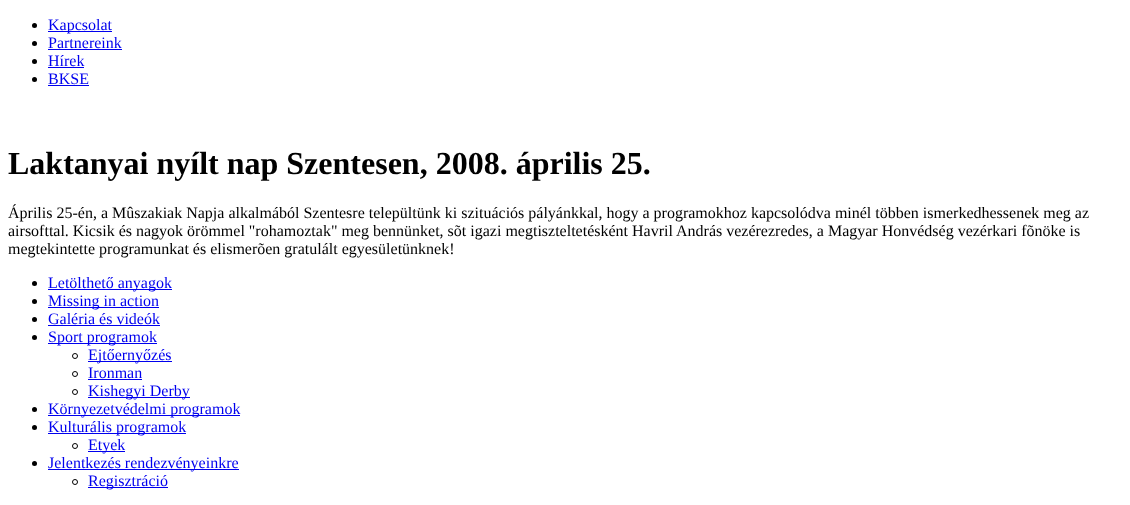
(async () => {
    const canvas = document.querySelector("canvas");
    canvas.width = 1130;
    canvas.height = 505;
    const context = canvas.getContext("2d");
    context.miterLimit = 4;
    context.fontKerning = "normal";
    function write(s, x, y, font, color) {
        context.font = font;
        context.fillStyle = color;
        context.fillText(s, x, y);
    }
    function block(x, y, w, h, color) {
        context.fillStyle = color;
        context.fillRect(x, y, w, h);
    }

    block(0, 0, 1130, 505, "rgb(255, 255, 255)");
    context.fillStyle = "rgb(0, 0, 0)";
    context.beginPath();
    context.arc(34.5, 25.5, 2.5, 0, Math.PI * 2);
    context.fill();
    block(48, 31, 64, 1, "rgb(0, 0, 238)");
    write("Kapcsolat", 48, 30, "16px Liberation Serif", "rgb(0, 0, 238)");
    context.fillStyle = "rgb(0, 0, 0)";
    context.beginPath();
    context.arc(34.5, 43.5, 2.5, 0, Math.PI * 2);
    context.fill();
    write("Partnereink", 48, 48, "16px Liberation Serif", "rgb(0, 0, 238)");
    block(48, 49, 74, 1, "rgb(0, 0, 238)");
    context.fillStyle = "rgb(0, 0, 0)";
    context.beginPath();
    context.arc(34.5, 61.5, 2.5, 0, Math.PI * 2);
    context.fill();
    write("Hírek", 48, 66, "16px Liberation Serif", "rgb(0, 0, 238)");
    block(48, 67, 36, 1, "rgb(0, 0, 238)");
    context.fillStyle = "rgb(0, 0, 0)";
    context.beginPath();
    context.arc(34.5, 79.5, 2.5, 0, Math.PI * 2);
    context.fill();
    write("BKSE", 48, 84, "16px Liberation Serif", "rgb(0, 0, 238)");
    block(48, 85, 41, 1, "rgb(0, 0, 238)");
    write("Laktanyai nyílt nap Szentesen, 2008. április 25.", 8, 174, "bold 32px Liberation Serif", "rgb(0, 0, 0)");
    write("Április 25-én, a Mûszakiak Napja alkalmából Szentesre települtünk ki szituációs pályánkkal, hogy a programokhoz kapcsolódva minél többen ismerkedhessenek meg az", 8, 218, "16px Liberation Serif", "rgb(0, 0, 0)");
    write("airsofttal. Kicsik és nagyok örömmel \"rohamoztak\" meg bennünket, sõt igazi megtiszteltetésként Havril András vezérezredes, a Magyar Honvédség vezérkari fõnöke is", 8, 236, "16px Liberation Serif", "rgb(0, 0, 0)");
    write("megtekintette programunkat és elismerõen gratulált egyesületünknek!", 8, 254, "16px Liberation Serif", "rgb(0, 0, 0)");
    context.beginPath();
    context.arc(34.5, 283.5, 2.5, 0, Math.PI * 2);
    context.fill();
    block(48, 289, 124, 1, "rgb(0, 0, 238)");
    write("Letölthető anyagok", 48, 288, "16px Liberation Serif", "rgb(0, 0, 238)");
    context.fillStyle = "rgb(0, 0, 0)";
    context.beginPath();
    context.arc(34.5, 301.5, 2.5, 0, Math.PI * 2);
    context.fill();
    block(48, 307, 111, 1, "rgb(0, 0, 238)");
    write("Missing in action", 48, 306, "16px Liberation Serif", "rgb(0, 0, 238)");
    context.fillStyle = "rgb(0, 0, 0)";
    context.beginPath();
    context.arc(34.5, 319.5, 2.5, 0, Math.PI * 2);
    context.fill();
    write("Galéria és videók", 48, 324, "16px Liberation Serif", "rgb(0, 0, 238)");
    block(48, 325, 112, 1, "rgb(0, 0, 238)");
    context.fillStyle = "rgb(0, 0, 0)";
    context.beginPath();
    context.arc(34.5, 337.5, 2.5, 0, Math.PI * 2);
    context.fill();
    block(48, 343, 109, 1, "rgb(0, 0, 238)");
    write("Sport programok", 48, 342, "16px Liberation Serif", "rgb(0, 0, 238)");
    context.beginPath();
    context.arc(75, 356, 2.5, 0, Math.PI * 2);
    context.strokeStyle = "rgb(0, 0, 0)";
    context.stroke();
    block(88, 361, 84, 1, "rgb(0, 0, 238)");
    write("Ejtőernyőzés", 88, 360, "16px Liberation Serif", "rgb(0, 0, 238)");
    context.beginPath();
    context.arc(75, 374, 2.5, 0, Math.PI * 2);
    context.stroke();
    write("Ironman", 88, 378, "16px Liberation Serif", "rgb(0, 0, 238)");
    block(88, 379, 54, 1, "rgb(0, 0, 238)");
    context.beginPath();
    context.arc(75, 392, 2.5, 0, Math.PI * 2);
    context.stroke();
    block(88, 397, 102, 1, "rgb(0, 0, 238)");
    write("Kishegyi Derby", 88, 396, "16px Liberation Serif", "rgb(0, 0, 238)");
    context.fillStyle = "rgb(0, 0, 0)";
    context.beginPath();
    context.arc(34.5, 409.5, 2.5, 0, Math.PI * 2);
    context.fill();
    block(48, 415, 192, 1, "rgb(0, 0, 238)");
    write("Környezetvédelmi programok", 48, 414, "16px Liberation Serif", "rgb(0, 0, 238)");
    context.fillStyle = "rgb(0, 0, 0)";
    context.beginPath();
    context.arc(34.5, 427.5, 2.5, 0, Math.PI * 2);
    context.fill();
    block(48, 433, 138, 1, "rgb(0, 0, 238)");
    write("Kulturális programok", 48, 432, "16px Liberation Serif", "rgb(0, 0, 238)");
    context.beginPath();
    context.arc(75, 446, 2.5, 0, Math.PI * 2);
    context.stroke();
    block(88, 451, 37, 1, "rgb(0, 0, 238)");
    write("Etyek", 88, 450, "16px Liberation Serif", "rgb(0, 0, 238)");
    context.fillStyle = "rgb(0, 0, 0)";
    context.beginPath();
    context.arc(34.5, 463.5, 2.5, 0, Math.PI * 2);
    context.fill();
    block(48, 469, 191, 1, "rgb(0, 0, 238)");
    write("Jelentkezés rendezvényeinkre", 48, 468, "16px Liberation Serif", "rgb(0, 0, 238)");
    context.beginPath();
    context.arc(75, 482, 2.5, 0, Math.PI * 2);
    context.stroke();
    block(88, 487, 80, 1, "rgb(0, 0, 238)");
    write("Regisztráció", 88, 486, "16px Liberation Serif", "rgb(0, 0, 238)");
})();
